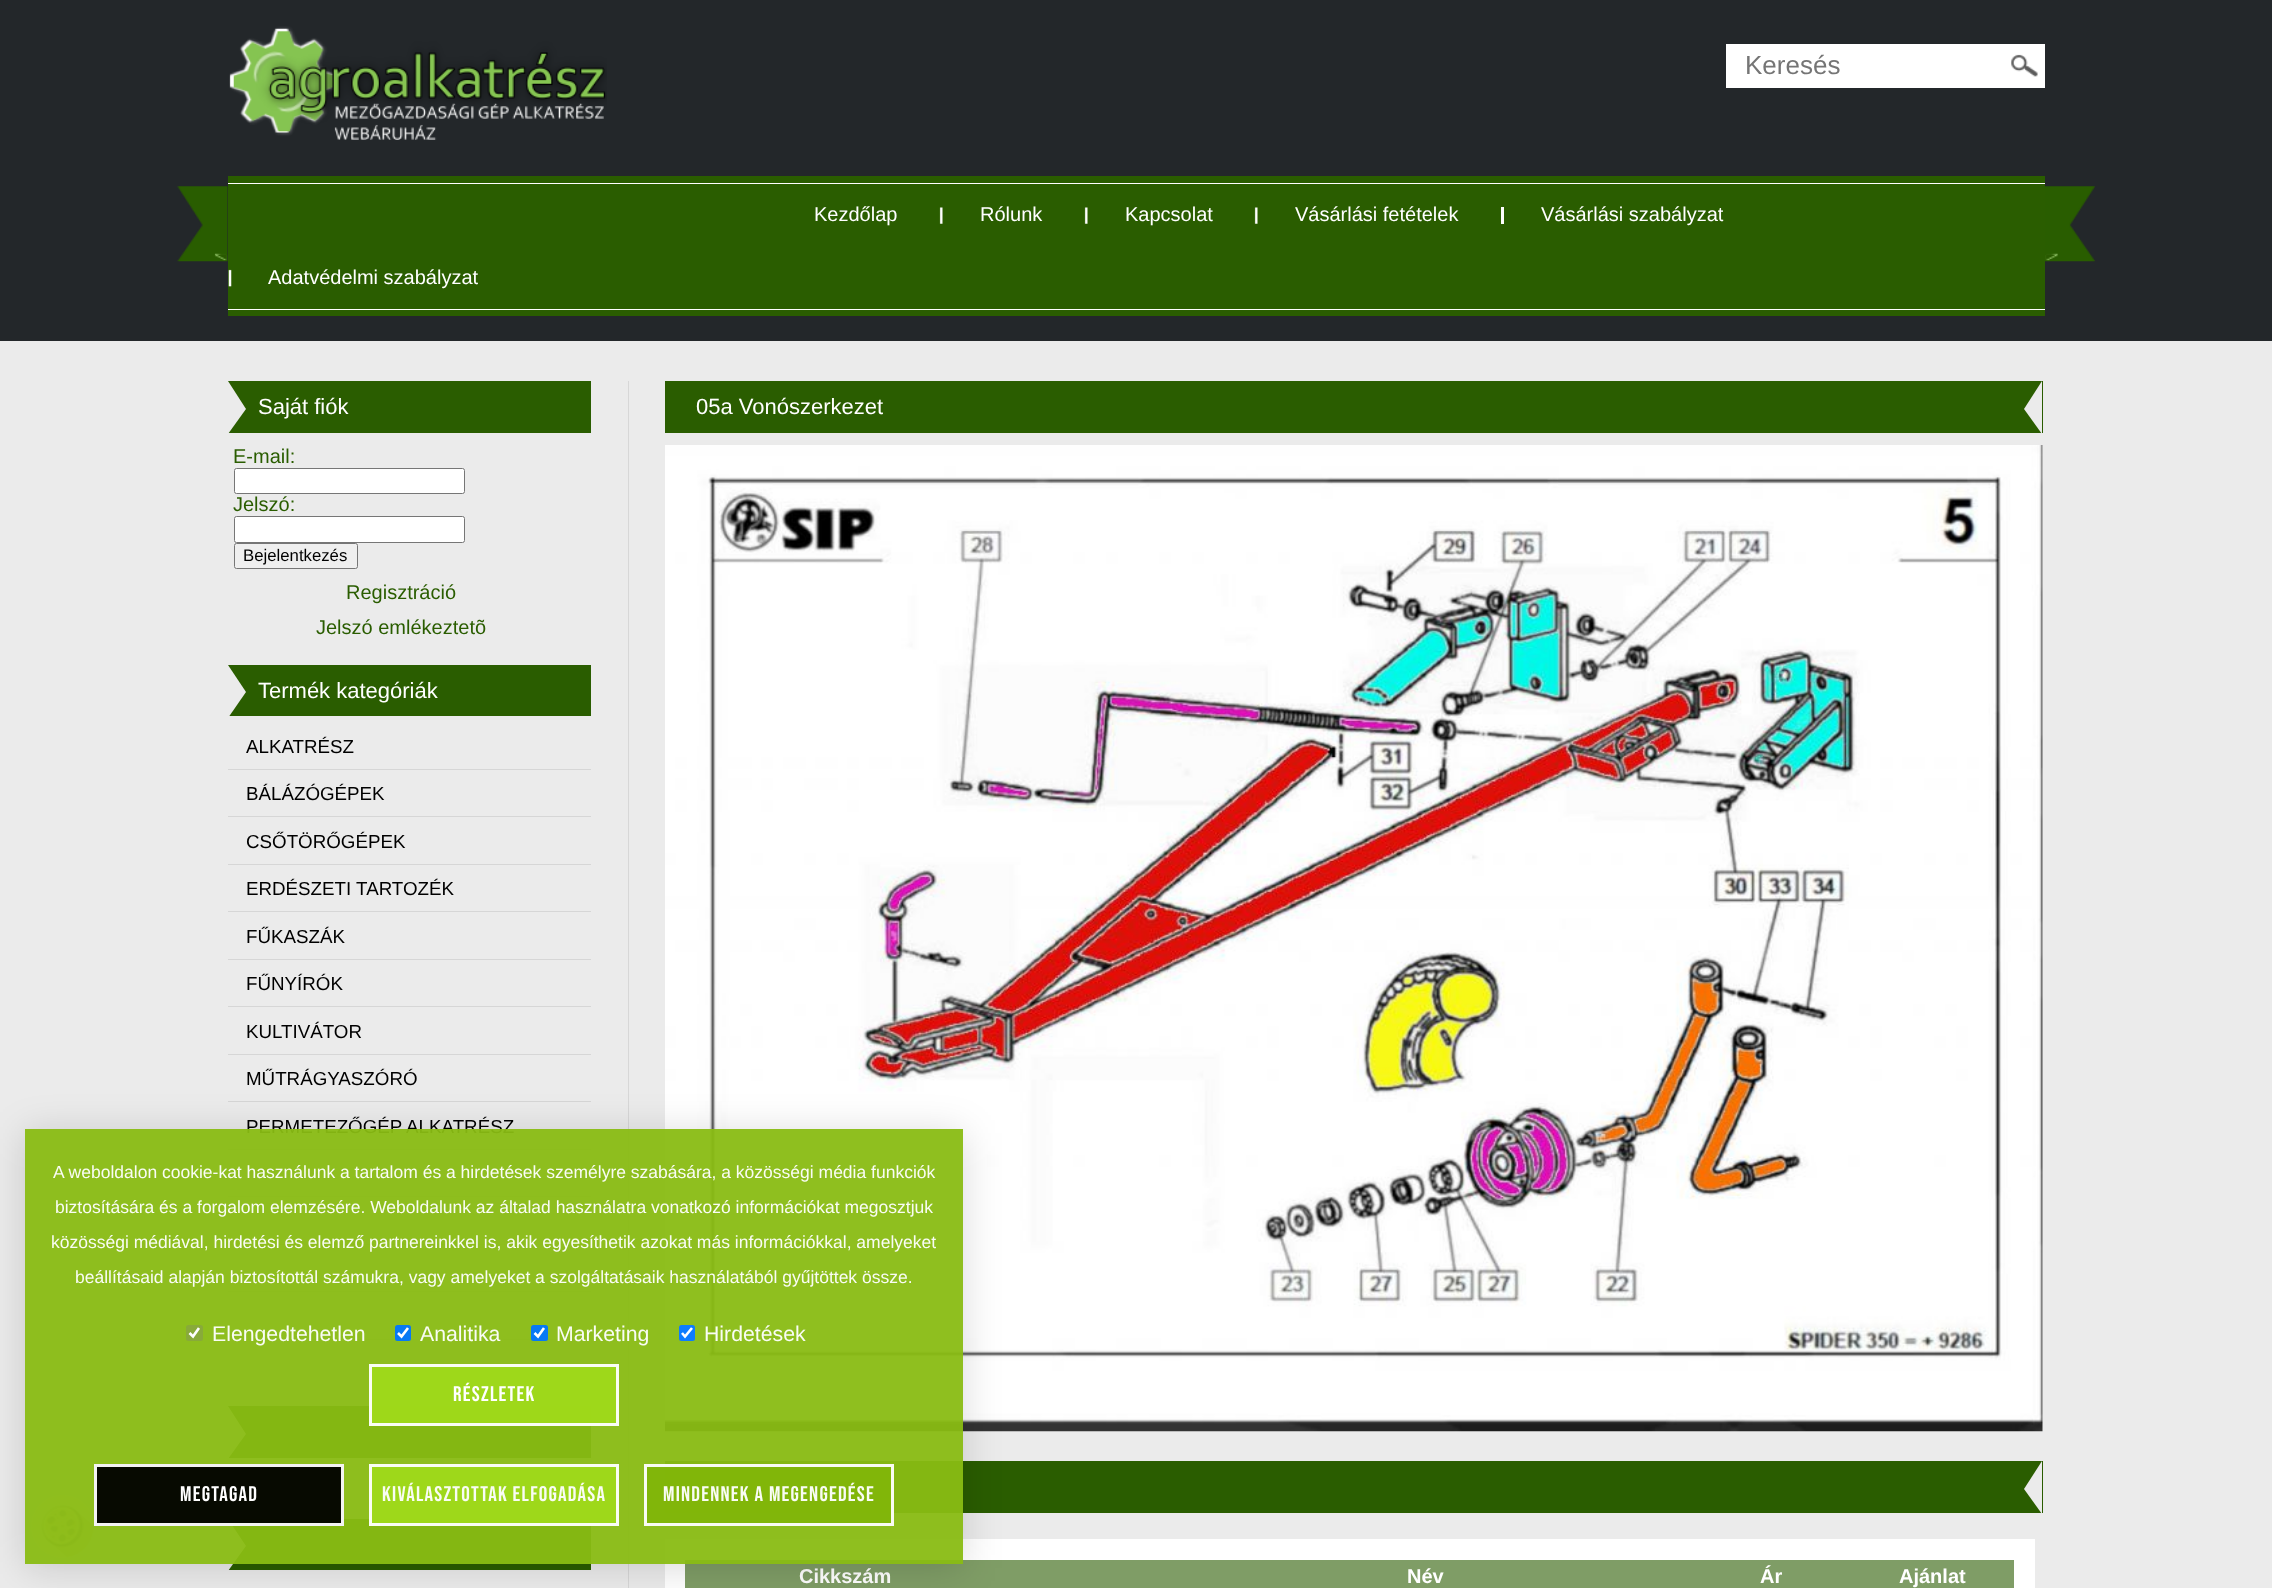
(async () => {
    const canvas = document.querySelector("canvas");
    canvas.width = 2272;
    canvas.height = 1588;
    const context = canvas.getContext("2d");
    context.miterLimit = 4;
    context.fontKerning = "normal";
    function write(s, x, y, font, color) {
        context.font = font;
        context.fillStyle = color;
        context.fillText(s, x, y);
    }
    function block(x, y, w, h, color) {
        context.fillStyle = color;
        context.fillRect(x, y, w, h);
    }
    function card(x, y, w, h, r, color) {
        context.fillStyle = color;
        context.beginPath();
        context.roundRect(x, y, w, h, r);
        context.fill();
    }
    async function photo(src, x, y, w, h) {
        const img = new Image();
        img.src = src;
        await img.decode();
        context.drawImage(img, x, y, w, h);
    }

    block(0, 0, 2272, 1588, "rgb(235, 235, 235)");
    block(0, 0, 2272, 341, "rgb(35, 39, 42)");
    await photo("media/1.png", 229, 26, 378, 114);
    block(1726, 44, 319, 44, "rgb(255, 255, 255)");
    write("Keresés", 1745, 74, "26px Liberation Sans", "rgb(117, 117, 117)");
    await photo("media/2.png", 2011, 54, 27, 23);
    block(228, 176, 1817, 140, "rgb(42, 93, 0)");
    await photo("media/3.png", 177, 186, 51, 76);
    block(228, 183, 1817, 1, "rgb(255, 255, 255)");
    block(228, 309, 1817, 1, "rgb(255, 255, 255)");
    write("Kezdőlap", 814, 221, "20px Liberation Sans", "rgb(255, 255, 255)");
    await photo("media/4.png", 939, 207, 4, 17);
    write("Rólunk", 980, 221, "20px Liberation Sans", "rgb(255, 255, 255)");
    await photo("media/4.png", 1084, 207, 4, 17);
    write("Kapcsolat", 1125, 221, "20px Liberation Sans", "rgb(255, 255, 255)");
    await photo("media/4.png", 1254, 207, 4, 17);
    write("Vásárlási fetételek", 1295, 221, "20px Liberation Sans", "rgb(255, 255, 255)");
    block(1501, 207, 3, 17, "rgb(254, 254, 254)");
    write("Vásárlási szabályzat", 1541, 221, "20px Liberation Sans", "rgb(255, 255, 255)");
    await photo("media/5.png", 228, 269, 4, 18);
    write("Adatvédelmi szabályzat", 268, 284, "20px Liberation Sans", "rgb(255, 255, 255)");
    await photo("media/6.png", 2045, 186, 50, 76);
    block(228, 381, 363, 52, "rgb(42, 93, 0)");
    context.fillStyle = "rgb(235, 235, 235)";
    context.beginPath();
    context.moveTo(228, 434);
    context.lineTo(228, 381);
    context.lineTo(246, 409);
    context.closePath();
    context.fill();
    write("Saját fiók", 258, 414, "22px Liberation Sans", "rgb(255, 255, 255)");
    write("E-mail:", 233, 463, "20px Liberation Sans", "rgb(42, 93, 0)");
    context.fillStyle = "rgb(255, 255, 255)";
    context.beginPath();
    context.roundRect(234.5, 468.5, 230, 25, 2);
    context.fill();
    context.strokeStyle = "rgb(118, 118, 118)";
    context.stroke();
    write("Jelszó:", 233, 511, "20px Liberation Sans", "rgb(42, 93, 0)");
    context.fillStyle = "rgb(255, 255, 255)";
    context.beginPath();
    context.roundRect(234.5, 516.5, 230, 26, 2);
    context.fill();
    context.stroke();
    context.fillStyle = "rgb(239, 239, 239)";
    context.beginPath();
    context.roundRect(234.5, 543.5, 123, 25, 2);
    context.fill();
    context.stroke();
    write("Bejelentkezés", 243, 561, "16.75px Liberation Sans", "rgb(0, 0, 0)");
    write("Regisztráció", 346, 599, "20px Liberation Sans", "rgb(42, 93, 0)");
    write("Jelszó emlékeztetõ", 316, 634, "20px Liberation Sans", "rgb(42, 93, 0)");
    block(228, 665, 363, 51, "rgb(42, 93, 0)");
    context.fillStyle = "rgb(235, 235, 235)";
    context.beginPath();
    context.moveTo(228, 718);
    context.lineTo(228, 665);
    context.lineTo(246, 692);
    context.closePath();
    context.fill();
    write("Termék kategóriák", 258, 698, "22px Liberation Sans", "rgb(255, 255, 255)");
    block(228, 769, 363, 1, "rgb(214, 214, 214)");
    write("ALKATRÉSZ", 246, 753, "18.75px Liberation Sans", "rgb(0, 0, 0)");
    block(228, 816, 363, 1, "rgb(214, 214, 214)");
    write("BÁLÁZÓGÉPEK", 246, 800, "18.75px Liberation Sans", "rgb(0, 0, 0)");
    block(228, 864, 363, 1, "rgb(214, 214, 214)");
    write("CSŐTÖRŐGÉPEK", 246, 848, "18.75px Liberation Sans", "rgb(0, 0, 0)");
    block(228, 911, 363, 1, "rgb(214, 214, 214)");
    write("ERDÉSZETI TARTOZÉK", 246, 895, "18.75px Liberation Sans", "rgb(0, 0, 0)");
    block(228, 959, 363, 1, "rgb(214, 214, 214)");
    write("FŰKASZÁK", 246, 943, "18.75px Liberation Sans", "rgb(0, 0, 0)");
    block(228, 1006, 363, 1, "rgb(214, 214, 214)");
    write("FŰNYÍRÓK", 246, 990, "18.75px Liberation Sans", "rgb(0, 0, 0)");
    block(228, 1054, 363, 1, "rgb(214, 214, 214)");
    write("KULTIVÁTOR", 246, 1038, "18.75px Liberation Sans", "rgb(0, 0, 0)");
    block(228, 1101, 363, 1, "rgb(214, 214, 214)");
    write("MŰTRÁGYASZÓRÓ", 246, 1085, "18.75px Liberation Sans", "rgb(0, 0, 0)");
    block(228, 1149, 363, 1, "rgb(214, 214, 214)");
    write("PERMETEZŐGÉP ALKATRÉSZ", 246, 1133, "18.75px Liberation Sans", "rgb(0, 0, 0)");
    block(228, 1196, 363, 1, "rgb(214, 214, 214)");
    block(228, 1244, 363, 1, "rgb(214, 214, 214)");
    block(228, 1291, 363, 1, "rgb(214, 214, 214)");
    block(228, 1339, 363, 1, "rgb(214, 214, 214)");
    block(228, 1406, 363, 52, "rgb(42, 93, 0)");
    context.fillStyle = "rgb(235, 235, 235)";
    context.beginPath();
    context.moveTo(228, 1459);
    context.lineTo(228, 1406);
    context.lineTo(246, 1434);
    context.closePath();
    context.fill();
    block(228, 1519, 363, 51, "rgb(42, 93, 0)");
    context.fillStyle = "rgb(235, 235, 235)";
    context.beginPath();
    context.moveTo(228, 1571);
    context.lineTo(228, 1519);
    context.lineTo(246, 1546);
    context.closePath();
    context.fill();
    block(628, 381, 1, 1207, "rgb(215, 215, 215)");
    block(665, 381, 1378, 52, "rgb(42, 93, 0)");
    write("05a Vonószerkezet", 696, 414, "22px Liberation Sans", "rgb(255, 255, 255)");
    context.fillStyle = "rgb(235, 235, 235)";
    context.beginPath();
    context.moveTo(2042, 381);
    context.lineTo(2042, 434);
    context.lineTo(2024, 409);
    context.closePath();
    context.fill();
    await photo("media/7.png", 665, 445, 1378, 987);
    block(665, 1461, 1378, 52, "rgb(42, 93, 0)");
    context.fillStyle = "rgb(235, 235, 235)";
    context.beginPath();
    context.moveTo(2042, 1461);
    context.lineTo(2042, 1514);
    context.lineTo(2024, 1489);
    context.closePath();
    context.fill();
    block(665, 1539, 1370, 49, "rgb(255, 255, 255)");
    block(685, 1560, 1329, 28, "rgb(127, 157, 102)");
    write("Cikkszám", 799, 1583, "bold 20px Liberation Sans", "rgb(255, 255, 255)");
    write("Név", 1407, 1583, "bold 20px Liberation Sans", "rgb(255, 255, 255)");
    write("Ár", 1760, 1583, "bold 20px Liberation Sans", "rgb(255, 255, 255)");
    write("Ajánlat", 1899, 1583, "bold 20px Liberation Sans", "rgb(255, 255, 255)");
    await photo("media/8.png", 31, 1495, 64, 63);
    context.save();
    context.beginPath();
    context.moveTo(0, 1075);
    context.lineTo(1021, 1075);
    context.lineTo(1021, 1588);
    context.lineTo(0, 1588);
    context.closePath();
    context.moveTo(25, 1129);
    context.lineTo(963, 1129);
    context.lineTo(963, 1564);
    context.lineTo(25, 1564);
    context.closePath();
    context.clip("evenodd");
    context.fillStyle = "rgba(0, 0, 0, 0.15)";
    context.filter = "blur(19px)";
    context.beginPath();
    context.rect(25, 1133, 938, 435);
    context.fill();
    context.filter = "none";
    context.restore();
    block(25, 1129, 938, 435, "rgba(137, 188, 19, 0.95)");
    write("A weboldalon cookie-kat használunk a tartalom és a hirdetések személyre szabására, a közösségi média funkciók", 53, 1178, "17.5px Liberation Sans", "rgb(249, 252, 244)");
    write("biztosítására és a forgalom elemzésére. Weboldalunk az általad használatra vonatkozó információkat megosztjuk", 55, 1213, "17.5px Liberation Sans", "rgb(249, 252, 244)");
    write("közösségi médiával, hirdetési és elemző partnereinkkel is, akik egyesíthetik azokat más információkkal, amelyeket", 51, 1248, "17.5px Liberation Sans", "rgb(249, 252, 244)");
    write("beállításaid alapján biztosítottál számukra, vagy amelyeket a szolgáltatásaik használatából gyűjtöttek össze.", 75, 1283, "17.5px Liberation Sans", "rgb(249, 252, 244)");
    card(186, 1325, 17, 16, 2.5, "rgb(136, 170, 58)");
    context.beginPath();
    context.moveTo(189.5, 1333);
    context.lineTo(193, 1336.5);
    context.lineTo(199, 1328);
    context.strokeStyle = "rgb(254, 254, 254)";
    context.lineWidth = 2.6;
    context.stroke();
    write("Elengedtehetlen", 212, 1341, "21.25px Liberation Sans", "rgb(249, 252, 244)");
    card(395, 1325, 16, 16, 2.5, "rgb(7, 121, 244)");
    context.beginPath();
    context.moveTo(398, 1333);
    context.lineTo(401.5, 1336.5);
    context.lineTo(408, 1328);
    context.stroke();
    write("Analitika", 420, 1341, "21.25px Liberation Sans", "rgb(249, 252, 244)");
    card(531, 1325, 17, 16, 2.5, "rgb(7, 121, 244)");
    context.beginPath();
    context.moveTo(534.5, 1333);
    context.lineTo(538, 1336.5);
    context.lineTo(544, 1328);
    context.stroke();
    write("Marketing", 556, 1341, "21.25px Liberation Sans", "rgb(249, 252, 244)");
    card(679, 1325, 16, 16, 2.5, "rgb(13, 124, 255)");
    context.beginPath();
    context.moveTo(682, 1333);
    context.lineTo(685, 1336.5);
    context.lineTo(692, 1328);
    context.strokeStyle = "rgb(255, 255, 255)";
    context.stroke();
    write("Hirdetések", 704, 1341, "21.25px Liberation Sans", "rgb(249, 252, 244)");
    context.fillStyle = "rgba(159, 217, 26, 0.95)";
    context.beginPath();
    context.rect(370.5, 1365.5, 247, 59);
    context.fill();
    context.strokeStyle = "rgb(250, 253, 244)";
    context.lineWidth = 3;
    context.stroke();
    context.letterSpacing = "1.25px";
    write("Részletek", 453, 1401, "21.25px Bebas Neue", "rgb(255, 255, 255)");
    context.fillStyle = "rgba(0, 0, 0, 0.95)";
    context.beginPath();
    context.rect(95.5, 1465.5, 247, 59);
    context.fill();
    context.strokeStyle = "rgb(243, 243, 242)";
    context.stroke();
    write("Megtagad", 180, 1501, "21.25px Bebas Neue", "rgb(255, 255, 255)");
    context.fillStyle = "rgba(159, 217, 26, 0.95)";
    context.beginPath();
    context.rect(370.5, 1465.5, 247, 59);
    context.fill();
    context.strokeStyle = "rgb(250, 253, 244)";
    context.stroke();
    write("Kiválasztottak elfogadása", 382, 1501, "21.25px Bebas Neue", "rgb(249, 252, 244)");
    context.fillStyle = "rgba(129, 181, 9, 0.95)";
    context.beginPath();
    context.rect(645.5, 1465.5, 247, 59);
    context.fill();
    context.strokeStyle = "rgb(249, 251, 243)";
    context.stroke();
    write("Mindennek a megengedése", 663, 1501, "21.25px Bebas Neue", "rgb(249, 252, 244)");
})();
